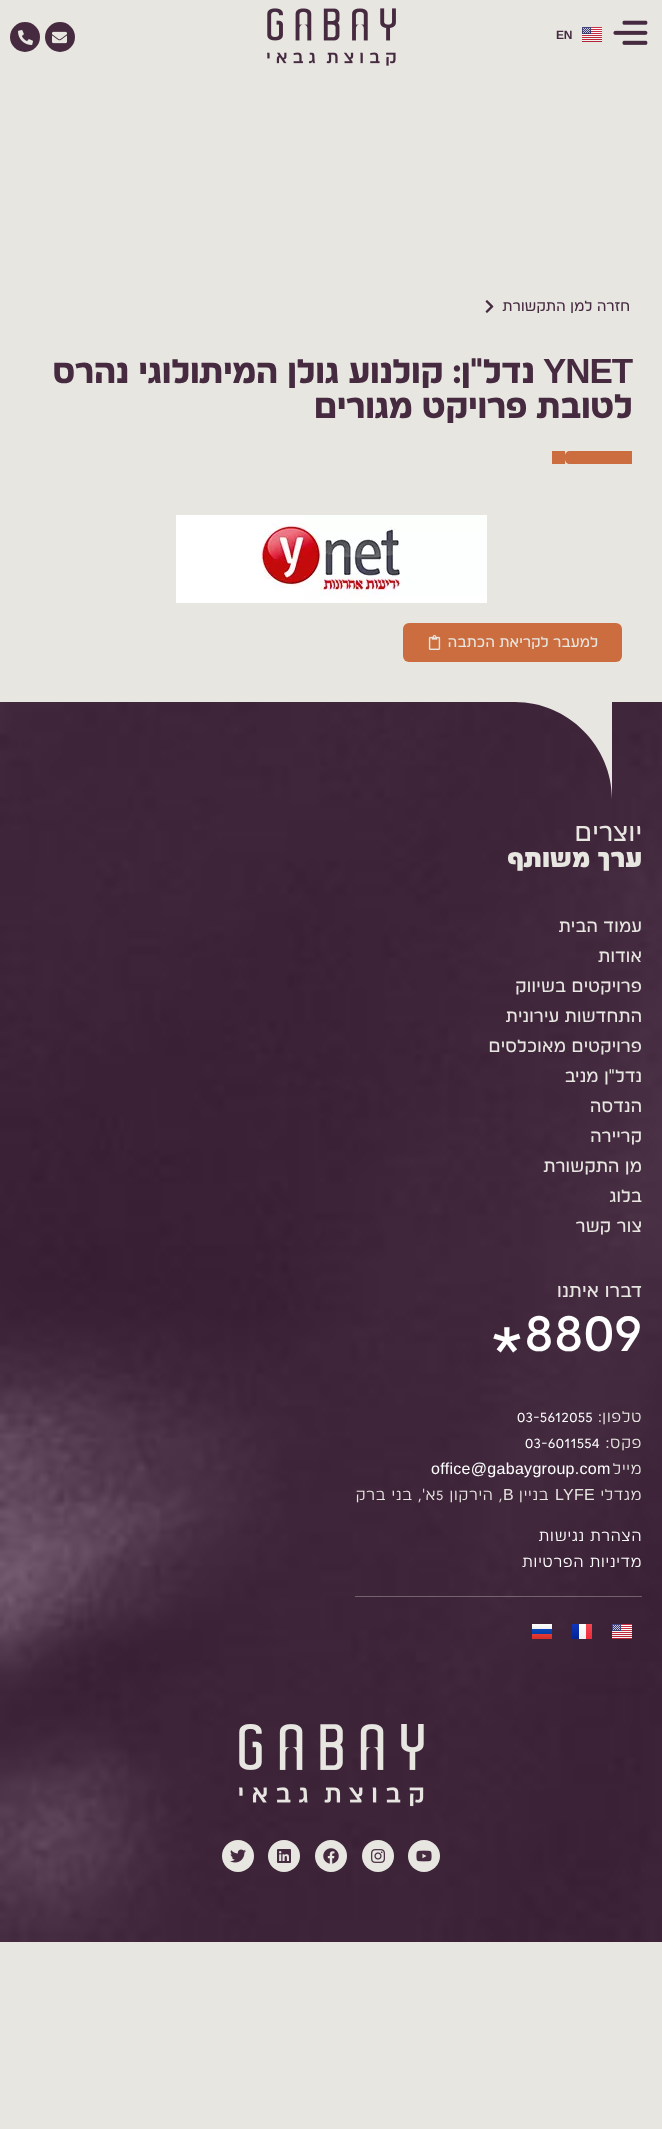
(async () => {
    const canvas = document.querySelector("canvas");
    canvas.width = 662;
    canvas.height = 2129;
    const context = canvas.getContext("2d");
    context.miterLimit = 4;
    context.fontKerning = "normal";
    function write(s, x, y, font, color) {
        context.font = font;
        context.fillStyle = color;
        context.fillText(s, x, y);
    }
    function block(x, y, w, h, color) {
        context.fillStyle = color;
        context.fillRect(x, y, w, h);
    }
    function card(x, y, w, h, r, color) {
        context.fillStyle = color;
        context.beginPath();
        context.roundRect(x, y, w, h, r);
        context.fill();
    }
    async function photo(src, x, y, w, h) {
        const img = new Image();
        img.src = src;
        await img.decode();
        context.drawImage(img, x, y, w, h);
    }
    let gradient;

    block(0, 0, 662, 2129, "rgb(232, 230, 225)");
    await photo("media/1.png", 613, 20, 35, 25);
    await photo("media/2.png", 582, 27, 20, 15);
    context.letterSpacing = "-0.25px";
    write("EN", 556, 39, "bold 12px Liberation Sans", "rgb(70, 43, 64)");
    await photo("media/3.png", 267, 8, 129, 58);
    context.beginPath();
    context.arc(60, 37, 15, 0, Math.PI * 2);
    context.fill();
    await photo("media/4.png", 52, 31, 15, 13);
    context.beginPath();
    context.arc(25, 37, 15, 0, Math.PI * 2);
    context.fill();
    await photo("media/5.png", 18, 30, 15, 15);
    context.direction = "rtl";
    write("חזרה למן התקשורת", 630, 311, "500 15px 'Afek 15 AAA'", "rgb(70, 43, 64)");
    await photo("media/6.png", 485, 300, 9, 13);
    context.letterSpacing = "-1.1px";
    context.direction = "ltr";
    write("YNET", 543, 383, "bold 35px Liberation Sans", "rgb(70, 43, 64)");
    context.direction = "rtl";
    write("נדל\"ן: קולנוע גולן המיתולוגי נהרס", 534, 383, "bold 35px 'Afek 15 AAA'", "rgb(70, 43, 64)");
    write("לטובת פרויקט מגורים", 632, 418, "bold 35px 'Afek 15 AAA'", "rgb(70, 43, 64)");
    context.fillStyle = "rgb(204, 109, 63)";
    context.beginPath();
    context.moveTo(570, 464);
    context.bezierCurveTo(567, 464, 565, 462, 565, 459);
    context.lineTo(565, 464);
    context.lineTo(552, 464);
    context.lineTo(552, 451);
    context.lineTo(565, 451);
    context.lineTo(565, 456);
    context.bezierCurveTo(565, 453, 567, 451, 570, 451);
    context.lineTo(632, 451);
    context.lineTo(632, 464);
    context.closePath();
    context.fill();
    await photo("media/7.png", 176, 515, 311, 88);
    card(403, 623, 219, 39, 6, "rgb(204, 109, 63)");
    context.letterSpacing = "-0.25px";
    write("למעבר לקריאת הכתבה", 598, 647, "500 15px 'Afek 15 AAA'", "rgb(232, 230, 225)");
    await photo("media/8.png", 428, 635, 13, 15);
    await photo("media/9.png", 0, 702, 662, 1240);
    context.beginPath();
    context.moveTo(515, 702);
    context.bezierCurveTo(568, 702, 612, 746, 612, 799);
    context.lineTo(612, 702);
    context.closePath();
    context.fill("evenodd");
    write("יוצרים", 642, 841, "500 26px 'Afek 15 AAA'", "rgb(232, 230, 225)");
    write("ערך משותף", 642, 867, "800 26px 'Afek 15 AAA'", "rgb(232, 230, 225)");
    write("עמוד הבית", 642, 932, "500 18px 'Afek 15 AAA'", "rgb(232, 230, 225)");
    write("אודות", 642, 962, "500 18px 'Afek 15 AAA'", "rgb(232, 230, 225)");
    write("פרויקטים בשיווק", 642, 992, "500 18px 'Afek 15 AAA'", "rgb(232, 230, 225)");
    write("התחדשות עירונית", 642, 1022, "500 18px 'Afek 15 AAA'", "rgb(232, 230, 225)");
    write("פרויקטים מאוכלסים", 642, 1052, "500 18px 'Afek 15 AAA'", "rgb(232, 230, 225)");
    write("נדל\"ן מניב", 642, 1082, "500 18px 'Afek 15 AAA'", "rgb(232, 230, 225)");
    write("הנדסה", 642, 1112, "500 18px 'Afek 15 AAA'", "rgb(232, 230, 225)");
    write("קריירה", 642, 1142, "500 18px 'Afek 15 AAA'", "rgb(232, 230, 225)");
    write("מן התקשורת", 642, 1172, "500 18px 'Afek 15 AAA'", "rgb(232, 230, 225)");
    write("בלוג", 642, 1202, "500 18px 'Afek 15 AAA'", "rgb(232, 230, 225)");
    write("צור קשר", 642, 1232, "500 18px 'Afek 15 AAA'", "rgb(232, 230, 225)");
    write("דברו איתנו", 642, 1297, "500 19px 'Afek 15 AAA'", "rgb(232, 230, 225)");
    context.direction = "ltr";
    write("8809", 524, 1351, "500 60px 'Afek 15 AAA'", "rgb(255, 255, 255)");
    write("*", 490, 1384, "500 90px 'Afek 15 AAA'", "rgb(255, 255, 255)");
    block(355, 1596, 287, 1, "rgba(232, 230, 225, 0.32)");
    context.letterSpacing = "0.3px";
    context.direction = "rtl";
    write("טלפון:", 642, 1422, "16px 'Afek 15 AAA'", "rgb(232, 230, 225)");
    context.direction = "ltr";
    write("03-5612055", 517, 1422, "16px 'Afek 15 AAA'", "rgb(255, 255, 255)");
    context.direction = "rtl";
    write("פקס:", 642, 1448, "16px 'Afek 15 AAA'", "rgb(232, 230, 225)");
    context.direction = "ltr";
    write("03-6011554", 525, 1448, "16px 'Afek 15 AAA'", "rgb(255, 255, 255)");
    context.direction = "rtl";
    write("מייל", 642, 1474, "16px 'Afek 15 AAA'", "rgb(232, 230, 225)");
    context.direction = "ltr";
    write("office@gabaygroup.com", 431, 1474, "16px Liberation Sans", "rgb(255, 255, 255)");
    context.direction = "rtl";
    write("מגדלי", 642, 1500, "16px 'Afek 15 AAA'", "rgb(232, 230, 225)");
    context.direction = "ltr";
    write("LYFE", 555, 1500, "16px Liberation Sans", "rgb(232, 230, 225)");
    context.direction = "rtl";
    write("בניין", 549, 1500, "16px 'Afek 15 AAA'", "rgb(232, 230, 225)");
    context.direction = "ltr";
    write("B", 503, 1500, "16px Liberation Sans", "rgb(232, 230, 225)");
    context.direction = "rtl";
    write(", הירקון", 503, 1500, "16px 'Afek 15 AAA'", "rgb(232, 230, 225)");
    context.direction = "ltr";
    write("5", 436, 1500, "16px 'Afek 15 AAA'", "rgb(232, 230, 225)");
    context.direction = "rtl";
    write("א', בני ברק", 436, 1500, "16px 'Afek 15 AAA'", "rgb(232, 230, 225)");
    write("הצהרת נגישות", 642, 1541, "16px 'Afek 15 AAA'", "rgb(255, 255, 255)");
    write("מדיניות הפרטיות", 642, 1567, "16px 'Afek 15 AAA'", "rgb(255, 255, 255)");
    await photo("media/2.png", 612, 1624, 20, 15);
    gradient = context.createLinearGradient(588, 1624, 588, 1639);
    gradient.addColorStop(0, "rgb(244, 70, 83)");
    gradient.addColorStop(1, "rgb(238, 42, 57)");
    context.fillStyle = gradient;
    context.fillRect(586, 1624, 6, 15);
    gradient = context.createLinearGradient(583, 1624, 583, 1639);
    gradient.addColorStop(0, "rgb(255, 255, 255)");
    gradient.addColorStop(1, "rgb(240, 240, 240)");
    context.fillStyle = gradient;
    context.fillRect(579, 1624, 7, 15);
    gradient = context.createLinearGradient(576, 1624, 576, 1639);
    gradient.addColorStop(0, "rgb(16, 53, 187)");
    gradient.addColorStop(1, "rgb(4, 35, 150)");
    context.fillStyle = gradient;
    context.fillRect(572, 1624, 7, 15);
    gradient = context.createLinearGradient(543, 1624, 543, 1629);
    gradient.addColorStop(0, "rgb(255, 255, 255)");
    gradient.addColorStop(1, "rgb(240, 240, 240)");
    context.fillStyle = gradient;
    context.fillRect(532, 1624, 20, 5);
    gradient = context.createLinearGradient(543, 1629, 543, 1634);
    gradient.addColorStop(0, "rgb(12, 71, 183)");
    gradient.addColorStop(1, "rgb(7, 61, 164)");
    context.fillStyle = gradient;
    context.fillRect(532, 1629, 20, 5);
    gradient = context.createLinearGradient(543, 1634, 543, 1639);
    gradient.addColorStop(0, "rgb(229, 59, 53)");
    gradient.addColorStop(1, "rgb(211, 46, 40)");
    context.fillStyle = gradient;
    context.fillRect(532, 1634, 20, 5);
    await photo("media/10.png", 239, 1724, 185, 83);
    context.fillStyle = "rgb(232, 230, 225)";
    context.beginPath();
    context.arc(424, 1856, 16, 0, Math.PI * 2);
    context.fill();
    await photo("media/11.png", 416, 1850, 16, 12);
    context.beginPath();
    context.arc(378, 1856, 16, 0, Math.PI * 2);
    context.fill();
    await photo("media/12.png", 371, 1849, 14, 14);
    context.beginPath();
    context.arc(331, 1856, 16, 0, Math.PI * 2);
    context.fill();
    await photo("media/13.png", 323, 1848, 16, 16);
    context.beginPath();
    context.arc(284, 1856, 16, 0, Math.PI * 2);
    context.fill();
    await photo("media/14.png", 277, 1849, 14, 14);
    context.beginPath();
    context.arc(238, 1856, 16, 0, Math.PI * 2);
    context.fill();
    await photo("media/15.png", 230, 1849, 16, 14);
})();
